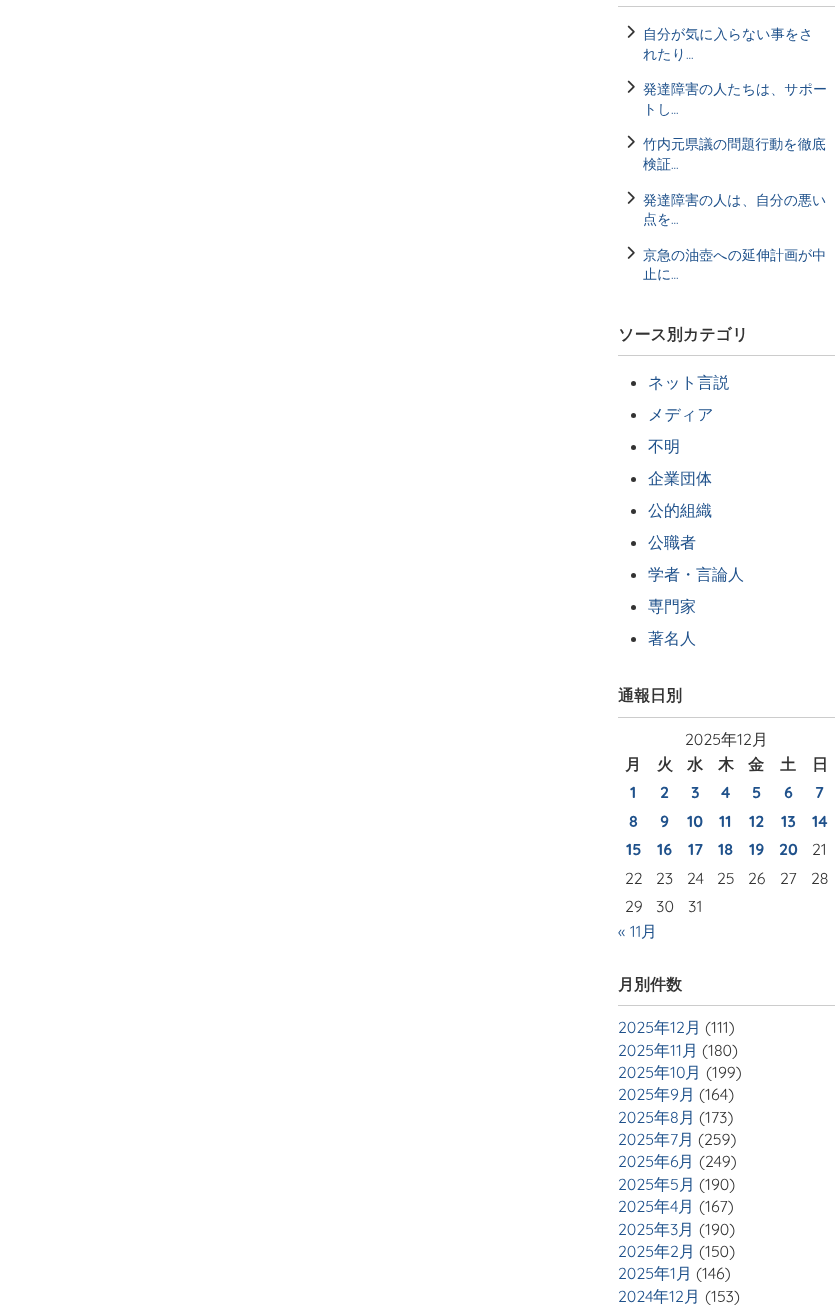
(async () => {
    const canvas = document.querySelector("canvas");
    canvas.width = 835;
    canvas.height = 1310;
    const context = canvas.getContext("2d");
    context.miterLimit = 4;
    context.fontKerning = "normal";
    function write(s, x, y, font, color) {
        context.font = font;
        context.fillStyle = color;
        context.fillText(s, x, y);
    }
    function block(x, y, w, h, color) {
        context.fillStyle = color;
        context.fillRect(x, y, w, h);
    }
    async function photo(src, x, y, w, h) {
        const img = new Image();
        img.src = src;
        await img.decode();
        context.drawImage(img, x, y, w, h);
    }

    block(0, 0, 835, 1310, "rgb(255, 255, 255)");
    block(618, 6, 217, 1, "rgb(204, 204, 204)");
    await photo("media/1.png", 627, 25, 8, 13);
    write("自分が気に入らない事をさ", 643, 39, "500 14px WenQuanYi Zen Hei", "rgb(31, 81, 139)");
    write("れたり", 643, 59, "500 14px WenQuanYi Zen Hei", "rgb(31, 81, 139)");
    write("...", 686, 59, "14px Quicksand", "rgb(31, 81, 139)");
    await photo("media/1.png", 627, 80, 8, 13);
    write("発達障害の人たちは、サポー", 643, 94, "500 14px WenQuanYi Zen Hei", "rgb(31, 81, 139)");
    write("トし", 643, 114, "500 14px WenQuanYi Zen Hei", "rgb(31, 81, 139)");
    write("...", 671, 114, "14px Quicksand", "rgb(31, 81, 139)");
    await photo("media/1.png", 627, 135, 8, 13);
    write("竹内元県議の問題行動を徹底", 643, 149, "500 14px WenQuanYi Zen Hei", "rgb(31, 81, 139)");
    write("検証", 643, 169, "500 14px WenQuanYi Zen Hei", "rgb(31, 81, 139)");
    write("...", 671, 169, "14px Quicksand", "rgb(31, 81, 139)");
    await photo("media/1.png", 627, 191, 8, 13);
    write("発達障害の人は、自分の悪い", 643, 205, "500 14px WenQuanYi Zen Hei", "rgb(31, 81, 139)");
    write("点を", 643, 224, "500 14px WenQuanYi Zen Hei", "rgb(31, 81, 139)");
    write("...", 671, 224, "14px Quicksand", "rgb(31, 81, 139)");
    await photo("media/1.png", 627, 246, 8, 13);
    write("京急の油壺への延伸計画が中", 643, 260, "500 14px WenQuanYi Zen Hei", "rgb(31, 81, 139)");
    write("止に", 643, 279, "500 14px WenQuanYi Zen Hei", "rgb(31, 81, 139)");
    write("...", 671, 279, "14px Quicksand", "rgb(31, 81, 139)");
    block(618, 355, 217, 1, "rgb(204, 204, 204)");
    write("ソース別カテゴリ", 618, 340, "bold 16px WenQuanYi Zen Hei", "rgb(51, 51, 51)");
    context.beginPath();
    context.arc(633.5, 383.5, 2.5, 0, Math.PI * 2);
    context.fill();
    write("ネット言説", 648, 388, "500 16px WenQuanYi Zen Hei", "rgb(31, 81, 139)");
    context.fillStyle = "rgb(51, 51, 51)";
    context.beginPath();
    context.arc(633.5, 415.5, 2.5, 0, Math.PI * 2);
    context.fill();
    write("メディア", 648, 420, "500 16px WenQuanYi Zen Hei", "rgb(31, 81, 139)");
    context.fillStyle = "rgb(51, 51, 51)";
    context.beginPath();
    context.arc(633.5, 447.5, 2.5, 0, Math.PI * 2);
    context.fill();
    write("不明", 648, 452, "500 16px WenQuanYi Zen Hei", "rgb(31, 81, 139)");
    context.fillStyle = "rgb(51, 51, 51)";
    context.beginPath();
    context.arc(633.5, 479.5, 2.5, 0, Math.PI * 2);
    context.fill();
    write("企業団体", 648, 484, "500 16px WenQuanYi Zen Hei", "rgb(31, 81, 139)");
    context.fillStyle = "rgb(51, 51, 51)";
    context.beginPath();
    context.arc(633.5, 511.5, 2.5, 0, Math.PI * 2);
    context.fill();
    write("公的組織", 648, 516, "500 16px WenQuanYi Zen Hei", "rgb(31, 81, 139)");
    context.fillStyle = "rgb(51, 51, 51)";
    context.beginPath();
    context.arc(633.5, 543.5, 2.5, 0, Math.PI * 2);
    context.fill();
    write("公職者", 648, 548, "500 16px WenQuanYi Zen Hei", "rgb(31, 81, 139)");
    context.fillStyle = "rgb(51, 51, 51)";
    context.beginPath();
    context.arc(633.5, 575.5, 2.5, 0, Math.PI * 2);
    context.fill();
    write("学者・言論人", 648, 580, "500 16px WenQuanYi Zen Hei", "rgb(31, 81, 139)");
    context.fillStyle = "rgb(51, 51, 51)";
    context.beginPath();
    context.arc(633.5, 607.5, 2.5, 0, Math.PI * 2);
    context.fill();
    write("専門家", 648, 612, "500 16px WenQuanYi Zen Hei", "rgb(31, 81, 139)");
    context.fillStyle = "rgb(51, 51, 51)";
    context.beginPath();
    context.arc(633.5, 639.5, 2.5, 0, Math.PI * 2);
    context.fill();
    write("著名人", 648, 644, "500 16px WenQuanYi Zen Hei", "rgb(31, 81, 139)");
    block(618, 717, 217, 1, "rgb(204, 204, 204)");
    write("通報日別", 618, 701, "bold 16px WenQuanYi Zen Hei", "rgb(51, 51, 51)");
    write("2025", 685, 745, "16px Quicksand", "rgb(51, 51, 51)");
    write("年", 721, 745, "500 16px WenQuanYi Zen Hei", "rgb(51, 51, 51)");
    write("12", 737, 745, "16px Quicksand", "rgb(51, 51, 51)");
    write("月", 752, 745, "500 16px WenQuanYi Zen Hei", "rgb(51, 51, 51)");
    write("月", 625, 770, "bold 16px WenQuanYi Zen Hei", "rgb(51, 51, 51)");
    write("火", 657, 770, "bold 16px WenQuanYi Zen Hei", "rgb(51, 51, 51)");
    write("水", 687, 770, "bold 16px WenQuanYi Zen Hei", "rgb(51, 51, 51)");
    write("木", 718, 770, "bold 16px WenQuanYi Zen Hei", "rgb(51, 51, 51)");
    write("金", 748, 770, "bold 16px WenQuanYi Zen Hei", "rgb(51, 51, 51)");
    write("土", 780, 770, "bold 16px WenQuanYi Zen Hei", "rgb(51, 51, 51)");
    write("日", 812, 770, "bold 16px WenQuanYi Zen Hei", "rgb(51, 51, 51)");
    write("1", 630, 798, "bold 16px Quicksand", "rgb(31, 81, 139)");
    write("2", 660, 798, "bold 16px Quicksand", "rgb(31, 81, 139)");
    write("3", 691, 798, "bold 16px Quicksand", "rgb(31, 81, 139)");
    write("4", 721, 798, "bold 16px Quicksand", "rgb(31, 81, 139)");
    write("5", 752, 798, "bold 16px Quicksand", "rgb(31, 81, 139)");
    write("6", 784, 798, "bold 16px Quicksand", "rgb(31, 81, 139)");
    write("7", 815, 798, "bold 16px Quicksand", "rgb(31, 81, 139)");
    write("8", 629, 827, "bold 16px Quicksand", "rgb(31, 81, 139)");
    write("9", 660, 827, "bold 16px Quicksand", "rgb(31, 81, 139)");
    write("10", 687, 827, "bold 16px Quicksand", "rgb(31, 81, 139)");
    write("11", 719, 827, "bold 16px Quicksand", "rgb(31, 81, 139)");
    write("12", 749, 827, "bold 16px Quicksand", "rgb(31, 81, 139)");
    write("13", 781, 827, "bold 16px Quicksand", "rgb(31, 81, 139)");
    write("14", 812, 827, "bold 16px Quicksand", "rgb(31, 81, 139)");
    write("15", 626, 855, "bold 16px Quicksand", "rgb(31, 81, 139)");
    write("16", 657, 855, "bold 16px Quicksand", "rgb(31, 81, 139)");
    write("17", 688, 855, "bold 16px Quicksand", "rgb(31, 81, 139)");
    write("18", 718, 855, "bold 16px Quicksand", "rgb(31, 81, 139)");
    write("19", 749, 855, "bold 16px Quicksand", "rgb(31, 81, 139)");
    write("20", 779, 855, "bold 16px Quicksand", "rgb(31, 81, 139)");
    write("21", 812, 855, "16px Quicksand", "rgb(51, 51, 51)");
    write("22", 625, 884, "16px Quicksand", "rgb(51, 51, 51)");
    write("23", 656, 884, "16px Quicksand", "rgb(51, 51, 51)");
    write("24", 687, 884, "16px Quicksand", "rgb(51, 51, 51)");
    write("25", 717, 884, "16px Quicksand", "rgb(51, 51, 51)");
    write("26", 748, 884, "16px Quicksand", "rgb(51, 51, 51)");
    write("27", 780, 884, "16px Quicksand", "rgb(51, 51, 51)");
    write("28", 811, 884, "16px Quicksand", "rgb(51, 51, 51)");
    write("29", 625, 912, "16px Quicksand", "rgb(51, 51, 51)");
    write("30", 656, 912, "16px Quicksand", "rgb(51, 51, 51)");
    write("31", 688, 912, "16px Quicksand", "rgb(51, 51, 51)");
    write("« 11", 618, 937, "16px Quicksand", "rgb(31, 81, 139)");
    write("月", 641, 937, "500 16px WenQuanYi Zen Hei", "rgb(31, 81, 139)");
    block(618, 1005, 217, 1, "rgb(204, 204, 204)");
    write("月別件数", 618, 990, "bold 16px WenQuanYi Zen Hei", "rgb(51, 51, 51)");
    write("2025", 618, 1033, "16px Quicksand", "rgb(31, 81, 139)");
    write("年", 654, 1033, "500 16px WenQuanYi Zen Hei", "rgb(31, 81, 139)");
    write("12", 670, 1033, "16px Quicksand", "rgb(31, 81, 139)");
    write("月", 685, 1033, "500 16px WenQuanYi Zen Hei", "rgb(31, 81, 139)");
    write("(111)", 705, 1033, "16px Quicksand", "rgb(51, 51, 51)");
    write("2025", 618, 1056, "16px Quicksand", "rgb(31, 81, 139)");
    write("年", 654, 1056, "500 16px WenQuanYi Zen Hei", "rgb(31, 81, 139)");
    write("11", 670, 1056, "16px Quicksand", "rgb(31, 81, 139)");
    write("月", 682, 1056, "500 16px WenQuanYi Zen Hei", "rgb(31, 81, 139)");
    write("(180)", 702, 1056, "16px Quicksand", "rgb(51, 51, 51)");
    write("2025", 618, 1078, "16px Quicksand", "rgb(31, 81, 139)");
    write("年", 654, 1078, "500 16px WenQuanYi Zen Hei", "rgb(31, 81, 139)");
    write("10", 670, 1078, "16px Quicksand", "rgb(31, 81, 139)");
    write("月", 685, 1078, "500 16px WenQuanYi Zen Hei", "rgb(31, 81, 139)");
    write("(199)", 706, 1078, "16px Quicksand", "rgb(51, 51, 51)");
    write("2025", 618, 1100, "16px Quicksand", "rgb(31, 81, 139)");
    write("年", 654, 1100, "500 16px WenQuanYi Zen Hei", "rgb(31, 81, 139)");
    write("9", 670, 1100, "16px Quicksand", "rgb(31, 81, 139)");
    write("月", 679, 1100, "500 16px WenQuanYi Zen Hei", "rgb(31, 81, 139)");
    write("(164)", 699, 1100, "16px Quicksand", "rgb(51, 51, 51)");
    write("2025", 618, 1123, "16px Quicksand", "rgb(31, 81, 139)");
    write("年", 654, 1123, "500 16px WenQuanYi Zen Hei", "rgb(31, 81, 139)");
    write("8", 670, 1123, "16px Quicksand", "rgb(31, 81, 139)");
    write("月", 679, 1123, "500 16px WenQuanYi Zen Hei", "rgb(31, 81, 139)");
    write("(173)", 699, 1123, "16px Quicksand", "rgb(51, 51, 51)");
    write("2025", 618, 1145, "16px Quicksand", "rgb(31, 81, 139)");
    write("年", 654, 1145, "500 16px WenQuanYi Zen Hei", "rgb(31, 81, 139)");
    write("7", 670, 1145, "16px Quicksand", "rgb(31, 81, 139)");
    write("月", 678, 1145, "500 16px WenQuanYi Zen Hei", "rgb(31, 81, 139)");
    write("(259)", 698, 1145, "16px Quicksand", "rgb(51, 51, 51)");
    write("2025", 618, 1167, "16px Quicksand", "rgb(31, 81, 139)");
    write("年", 654, 1167, "500 16px WenQuanYi Zen Hei", "rgb(31, 81, 139)");
    write("6", 670, 1167, "16px Quicksand", "rgb(31, 81, 139)");
    write("月", 678, 1167, "500 16px WenQuanYi Zen Hei", "rgb(31, 81, 139)");
    write("(249)", 699, 1167, "16px Quicksand", "rgb(51, 51, 51)");
    write("2025", 618, 1190, "16px Quicksand", "rgb(31, 81, 139)");
    write("年", 654, 1190, "500 16px WenQuanYi Zen Hei", "rgb(31, 81, 139)");
    write("5", 670, 1190, "16px Quicksand", "rgb(31, 81, 139)");
    write("月", 679, 1190, "500 16px WenQuanYi Zen Hei", "rgb(31, 81, 139)");
    write("(190)", 699, 1190, "16px Quicksand", "rgb(51, 51, 51)");
    write("2025", 618, 1212, "16px Quicksand", "rgb(31, 81, 139)");
    write("年", 654, 1212, "500 16px WenQuanYi Zen Hei", "rgb(31, 81, 139)");
    write("4", 670, 1212, "16px Quicksand", "rgb(31, 81, 139)");
    write("月", 678, 1212, "500 16px WenQuanYi Zen Hei", "rgb(31, 81, 139)");
    write("(167)", 699, 1212, "16px Quicksand", "rgb(51, 51, 51)");
    write("2025", 618, 1235, "16px Quicksand", "rgb(31, 81, 139)");
    write("年", 654, 1235, "500 16px WenQuanYi Zen Hei", "rgb(31, 81, 139)");
    write("3", 670, 1235, "16px Quicksand", "rgb(31, 81, 139)");
    write("月", 678, 1235, "500 16px WenQuanYi Zen Hei", "rgb(31, 81, 139)");
    write("(190)", 699, 1235, "16px Quicksand", "rgb(51, 51, 51)");
    write("2025", 618, 1257, "16px Quicksand", "rgb(31, 81, 139)");
    write("年", 654, 1257, "500 16px WenQuanYi Zen Hei", "rgb(31, 81, 139)");
    write("2", 670, 1257, "16px Quicksand", "rgb(31, 81, 139)");
    write("月", 679, 1257, "500 16px WenQuanYi Zen Hei", "rgb(31, 81, 139)");
    write("(150)", 699, 1257, "16px Quicksand", "rgb(51, 51, 51)");
    write("2025", 618, 1279, "16px Quicksand", "rgb(31, 81, 139)");
    write("年", 654, 1279, "500 16px WenQuanYi Zen Hei", "rgb(31, 81, 139)");
    write("1", 670, 1279, "16px Quicksand", "rgb(31, 81, 139)");
    write("月", 676, 1279, "500 16px WenQuanYi Zen Hei", "rgb(31, 81, 139)");
    write("(146)", 696, 1279, "16px Quicksand", "rgb(51, 51, 51)");
    write("2024", 618, 1302, "16px Quicksand", "rgb(31, 81, 139)");
    write("年", 653, 1302, "500 16px WenQuanYi Zen Hei", "rgb(31, 81, 139)");
    write("12", 669, 1302, "16px Quicksand", "rgb(31, 81, 139)");
    write("月", 684, 1302, "500 16px WenQuanYi Zen Hei", "rgb(31, 81, 139)");
    write("(153)", 705, 1302, "16px Quicksand", "rgb(51, 51, 51)");
})();
